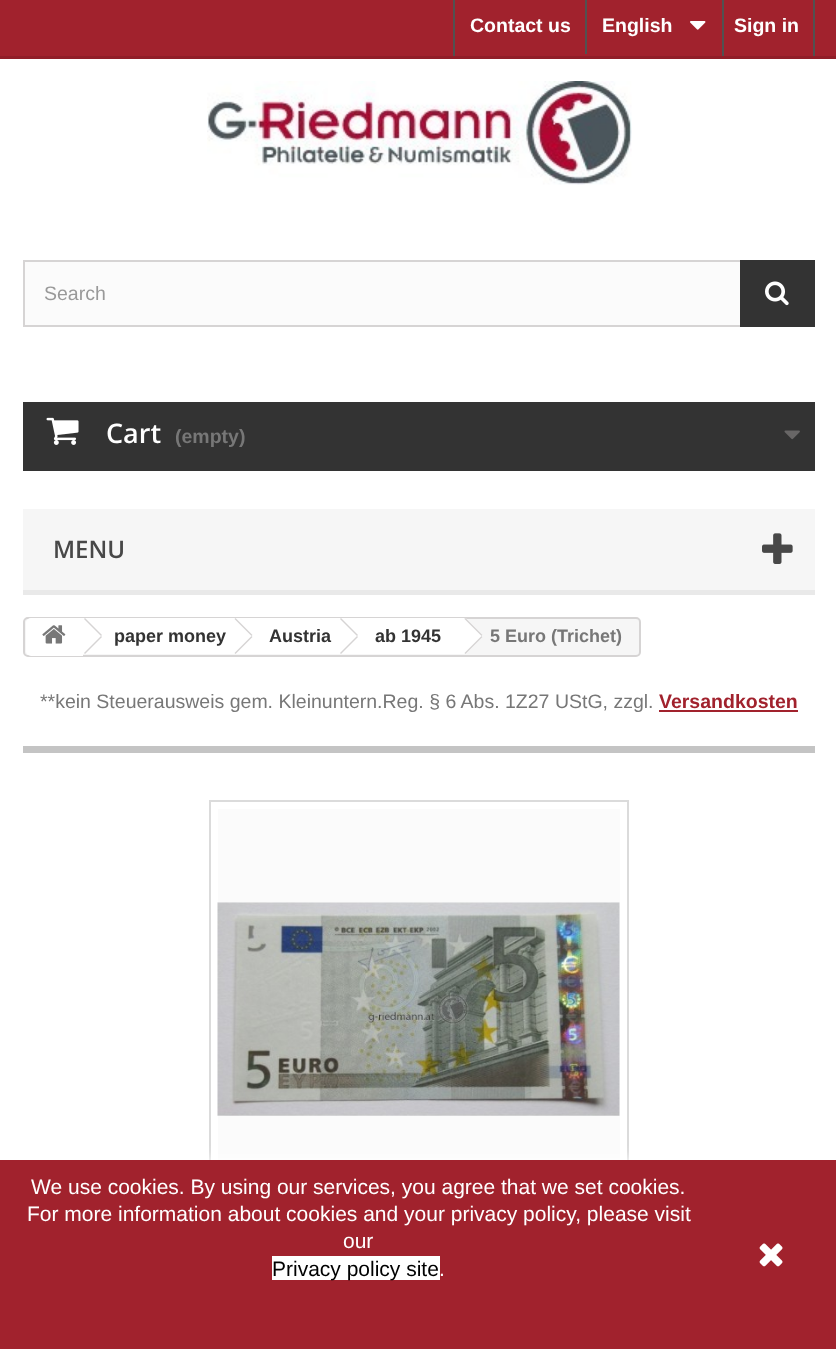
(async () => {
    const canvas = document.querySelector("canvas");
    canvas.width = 836;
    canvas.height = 1349;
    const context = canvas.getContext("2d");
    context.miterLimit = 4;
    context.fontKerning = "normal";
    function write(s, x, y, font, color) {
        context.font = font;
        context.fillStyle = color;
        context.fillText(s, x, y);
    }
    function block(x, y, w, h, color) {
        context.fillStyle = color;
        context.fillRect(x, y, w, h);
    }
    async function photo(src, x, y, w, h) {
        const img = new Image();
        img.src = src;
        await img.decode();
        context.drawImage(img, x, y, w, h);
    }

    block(0, 0, 836, 1349, "rgb(255, 255, 255)");
    block(0, 0, 836, 56, "rgb(161, 34, 45)");
    block(0, 56, 836, 3, "rgb(144, 30, 40)");
    block(453, 0, 2, 56, "rgb(81, 81, 81)");
    write("Contact us", 470, 32, "bold 19.5px Liberation Sans", "rgb(255, 255, 255)");
    block(585, 0, 2, 54, "rgb(81, 81, 81)");
    write("English", 602, 32, "bold 19.5px Liberation Sans", "rgb(255, 255, 255)");
    await photo("media/1.png", 690, 21, 16, 9);
    block(813, 0, 2, 56, "rgb(81, 81, 81)");
    block(722, 0, 2, 56, "rgb(81, 81, 81)");
    write("Sign in", 734, 32, "bold 19.5px Liberation Sans", "rgb(255, 255, 255)");
    await photo("media/2.png", 207, 81, 425, 104);
    block(25, 262, 715, 63, "rgb(251, 251, 251)");
    context.strokeStyle = "rgb(214, 212, 212)";
    context.lineWidth = 2;
    context.strokeRect(24, 261, 790, 65);
    write("Search", 44, 300, "19.5px Liberation Sans", "rgb(153, 153, 153)");
    block(740, 260, 75, 67, "rgb(51, 51, 51)");
    await photo("media/3.png", 765, 281, 24, 25);
    block(23, 402, 792, 69, "rgb(51, 51, 51)");
    await photo("media/4.png", 46, 417, 33, 28);
    write("Cart", 106, 443, "600 27px Open Sans", "rgb(255, 255, 255)");
    write("(empty)", 175, 443, "bold 19.5px Liberation Sans", "rgb(119, 119, 119)");
    await photo("media/5.png", 784, 430, 16, 10);
    block(23, 509, 792, 81, "rgb(246, 246, 246)");
    block(23, 590, 792, 5, "rgb(233, 233, 233)");
    write("MENU", 53, 558, "600 24px Open Sans", "rgb(72, 72, 72)");
    await photo("media/6.png", 762, 533, 31, 31);
    context.fillStyle = "rgb(246, 246, 246)";
    context.beginPath();
    context.roundRect(24, 618, 616, 38, 4);
    context.fill();
    context.stroke();
    context.fillStyle = "rgb(255, 255, 255)";
    context.beginPath();
    context.roundRect(26, 618, 57, 38, [5, 0, 0, 5]);
    context.fill();
    await photo("media/7.png", 42, 625, 24, 19);
    block(83, 618, 153, 36, "rgb(255, 255, 255)");
    context.fillStyle = "rgb(214, 212, 212)";
    context.beginPath();
    context.moveTo(85, 618);
    context.lineTo(102, 635);
    context.lineTo(101, 636);
    context.lineTo(84, 619);
    context.closePath();
    context.moveTo(101, 636);
    context.lineTo(102, 637);
    context.lineTo(85, 654);
    context.lineTo(84, 653);
    context.closePath();
    context.fill();
    write("paper money", 114, 642, "bold 18px Liberation Sans", "rgb(51, 51, 51)");
    context.fillStyle = "rgb(255, 255, 255)";
    context.beginPath();
    context.moveTo(251.5, 619);
    context.lineTo(266.5, 634);
    context.bezierCurveTo(267.5, 635, 267.5, 637, 266.5, 638);
    context.lineTo(251.5, 653);
    context.bezierCurveTo(250.5, 654, 248.5, 654, 247.5, 653);
    context.lineTo(232.5, 638);
    context.bezierCurveTo(231.5, 637, 231.5, 635, 232.5, 634);
    context.lineTo(247.5, 619);
    context.bezierCurveTo(248.5, 618, 250.5, 618, 251.5, 619);
    context.closePath();
    context.fill();
    block(236, 618, 106, 36, "rgb(255, 255, 255)");
    context.fillStyle = "rgb(214, 212, 212)";
    context.beginPath();
    context.moveTo(235.5, 618);
    context.lineTo(252.5, 635);
    context.lineTo(251.5, 636);
    context.lineTo(234.5, 619);
    context.closePath();
    context.moveTo(251.5, 636);
    context.lineTo(252.5, 637);
    context.lineTo(235.5, 654);
    context.lineTo(234.5, 653);
    context.closePath();
    context.fill();
    write("Austria", 269, 642, "bold 18px Liberation Sans", "rgb(51, 51, 51)");
    context.fillStyle = "rgb(255, 255, 255)";
    context.beginPath();
    context.moveTo(357, 619);
    context.lineTo(372, 634);
    context.bezierCurveTo(373, 635, 373, 637, 372, 638);
    context.lineTo(357, 653);
    context.bezierCurveTo(356, 654, 354, 654, 353, 653);
    context.lineTo(338, 638);
    context.bezierCurveTo(337, 637, 337, 635, 338, 634);
    context.lineTo(353, 619);
    context.bezierCurveTo(354, 618, 356, 618, 357, 619);
    context.closePath();
    context.fill();
    block(342, 618, 122, 36, "rgb(255, 255, 255)");
    context.fillStyle = "rgb(214, 212, 212)";
    context.beginPath();
    context.moveTo(341, 618);
    context.lineTo(358, 635);
    context.lineTo(357, 636);
    context.lineTo(340, 619);
    context.closePath();
    context.moveTo(357, 636);
    context.lineTo(358, 637);
    context.lineTo(341, 654);
    context.lineTo(340, 653);
    context.closePath();
    context.fill();
    write("ab 1945", 375, 642, "bold 18px Liberation Sans", "rgb(51, 51, 51)");
    context.fillStyle = "rgb(255, 255, 255)";
    context.beginPath();
    context.moveTo(467, 619);
    context.lineTo(481.5, 634);
    context.bezierCurveTo(483, 635, 483, 637, 481.5, 638);
    context.lineTo(467, 653);
    context.bezierCurveTo(465.5, 654, 463.5, 654, 462.5, 653);
    context.lineTo(447.5, 638);
    context.bezierCurveTo(446.5, 637, 446.5, 635, 447.5, 634);
    context.lineTo(462.5, 619);
    context.bezierCurveTo(463.5, 618, 465.5, 618, 467, 619);
    context.closePath();
    context.fill();
    context.fillStyle = "rgb(214, 212, 212)";
    context.beginPath();
    context.moveTo(465.5, 618);
    context.lineTo(482.5, 635);
    context.lineTo(481.5, 636);
    context.lineTo(464.5, 619);
    context.closePath();
    context.moveTo(481.5, 636);
    context.lineTo(482.5, 637);
    context.lineTo(465.5, 654);
    context.lineTo(464.5, 653);
    context.closePath();
    context.fill();
    write("5 Euro (Trichet)", 490, 642, "bold 18px Liberation Sans", "rgb(119, 119, 119)");
    write("**kein Steuerausweis gem. Kleinuntern.Reg. § 6 Abs. 1Z27 UStG, zzgl.", 40, 708, "19.5px Liberation Sans", "rgb(119, 119, 119)");
    write("Versandkosten", 659, 708, "bold 19.5px Liberation Sans", "rgb(161, 34, 45)");
    block(659, 710, 139, 2, "rgb(161, 34, 45)");
    block(23, 746, 792, 7, "rgb(196, 196, 196)");
    context.strokeStyle = "rgb(219, 219, 219)";
    context.strokeRect(210, 801, 418, 418);
    block(218, 809, 402, 351, "rgb(251, 251, 251)");
    await photo("media/8.png", 217, 902, 403, 214);
    context.fillStyle = "rgb(255, 255, 255)";
    context.filter = "blur(7.5px)";
    context.beginPath();
    context.rect(0, 1160, 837, 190);
    context.fill();
    context.filter = "none";
    block(0, 1160, 836, 189, "rgb(161, 34, 45)");
    write("We use cookies. By using our services, you agree that we set cookies.", 31, 1194, "21px Liberation Sans", "rgb(255, 255, 255)");
    write("For more information about cookies and your privacy policy, please visit", 27, 1221, "21px Liberation Sans", "rgb(255, 255, 255)");
    write("our", 343, 1248, "21px Liberation Sans", "rgb(255, 255, 255)");
    block(272, 1256, 168, 24, "rgb(255, 255, 255)");
    write("Privacy policy site", 272, 1276, "21px Liberation Sans", "rgb(0, 0, 0)");
    write(".", 439, 1276, "21px Liberation Sans", "rgb(255, 255, 255)");
    await photo("media/9.png", 759, 1243, 24, 24);
})();
